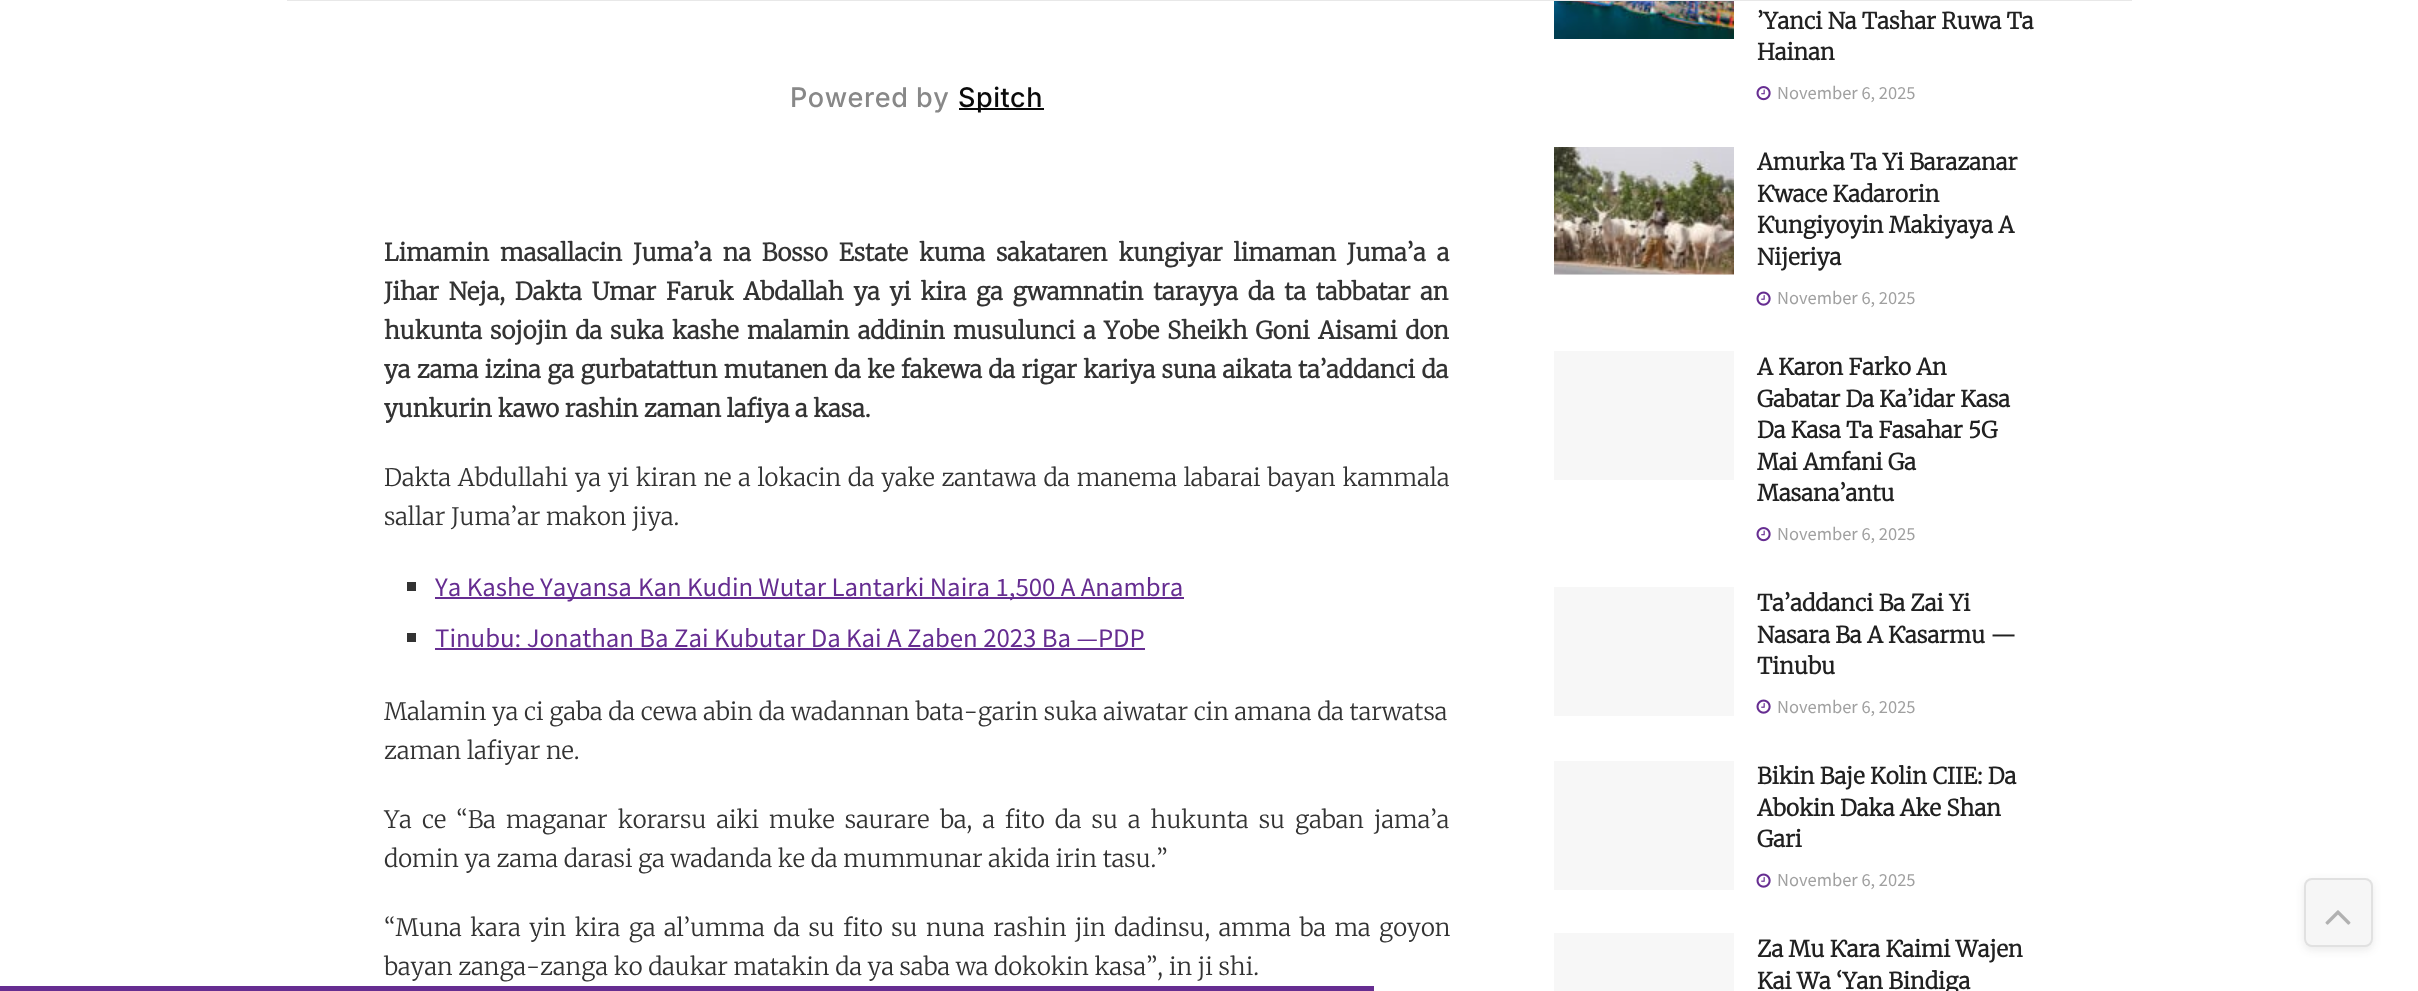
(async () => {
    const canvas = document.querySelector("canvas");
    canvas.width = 2418;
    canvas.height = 991;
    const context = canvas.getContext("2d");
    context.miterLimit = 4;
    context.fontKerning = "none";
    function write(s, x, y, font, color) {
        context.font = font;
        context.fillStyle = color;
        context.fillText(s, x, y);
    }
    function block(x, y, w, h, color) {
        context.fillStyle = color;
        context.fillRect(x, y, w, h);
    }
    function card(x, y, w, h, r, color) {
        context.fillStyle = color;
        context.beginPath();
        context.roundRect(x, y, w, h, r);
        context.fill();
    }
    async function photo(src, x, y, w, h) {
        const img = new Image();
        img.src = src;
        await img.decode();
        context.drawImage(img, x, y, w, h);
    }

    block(0, 0, 2418, 991, "rgb(255, 255, 255)");
    block(287, 0, 1845, 1, "rgb(232, 232, 232)");
    context.letterSpacing = "0.5px";
    write("Powered by", 790, 107, "500 27px Inter", "rgb(136, 136, 136)");
    block(959, 108, 85, 2, "rgb(10, 10, 10)");
    write("Spitch", 958, 107, "500 27px Inter", "rgb(10, 10, 10)");
    context.letterSpacing = "0px";
    context.wordSpacing = "5.25px";
    write("Limamin masallacin Juma’a na Bosso Estate kuma sakataren kungiyar limaman Juma’a a", 384, 261, "bold 24px Merriweather", "rgb(51, 51, 51)");
    context.wordSpacing = "4.1px";
    write("Jihar Neja, Dakta Umar Faruk Abdallah ya yi kira ga gwamnatin tarayya da ta tabbatar an", 384, 300, "bold 24px Merriweather", "rgb(51, 51, 51)");
    context.wordSpacing = "2.4px";
    write("hukunta sojojin da suka kashe malamin addinin musulunci a Yobe", 384, 339, "bold 24px Merriweather", "rgb(51, 51, 51)");
    write("Sheikh Goni Aisami don", 1167, 339, "bold 24px Merriweather", "rgb(51, 51, 51)");
    context.wordSpacing = "0.75px";
    write("ya zama izina ga gurbatattun mutanen da ke fakewa da rigar kariya suna aikata ta’addanci da", 384, 378, "bold 24px Merriweather", "rgb(51, 51, 51)");
    context.wordSpacing = "0px";
    write("yunkurin kawo rashin zaman lafiya a kasa.", 384, 417, "bold 24px Merriweather", "rgb(51, 51, 51)");
    context.wordSpacing = "1px";
    write("Dakta Abdullahi ya yi kiran ne a lokacin da yake zantawa da manema labarai bayan kammala", 384, 486, "300 24px Merriweather", "rgb(51, 51, 51)");
    context.wordSpacing = "0px";
    write("sallar Juma’ar makon jiya.", 384, 525, "300 24px Merriweather", "rgb(51, 51, 51)");
    block(407, 582, 9, 9, "rgb(51, 51, 51)");
    block(435, 597, 749, 2, "rgb(102, 45, 145)");
    write("Ya Kashe Yayansa", 435, 596, "100 24px Noto Sans KR", "rgb(102, 45, 145)");
    write("Kan Kudin Wutar Lantarki Naira 1,500 A Anambra", 638, 596, "100 24px Noto Sans KR", "rgb(102, 45, 145)");
    block(407, 633, 9, 9, "rgb(51, 51, 51)");
    write("Tinubu: Jonathan Ba Zai Kubutar Da Kai A Zaben 2023 Ba —PDP", 435, 647, "100 24px Noto Sans KR", "rgb(102, 45, 145)");
    block(435, 648, 710, 2, "rgb(102, 45, 145)");
    write("Malamin ya ci gaba da cewa abin da wadannan bata-garin suka aiwatar cin amana da tarwatsa", 384, 720, "300 24px Merriweather", "rgb(51, 51, 51)");
    write("zaman lafiyar ne.", 384, 759, "300 24px Merriweather", "rgb(51, 51, 51)");
    context.wordSpacing = "4.4px";
    write("Ya ce “Ba maganar korarsu aiki muke saurare", 384, 828, "300 24px Merriweather", "rgb(51, 51, 51)");
    write("ba, a fito da su a hukunta su gaban jama’a", 940, 828, "300 24px Merriweather", "rgb(51, 51, 51)");
    context.wordSpacing = "0px";
    write("domin ya zama darasi ga wadanda ke da mummunar akida irin tasu.”", 384, 867, "300 24px Merriweather", "rgb(51, 51, 51)");
    context.wordSpacing = "2.75px";
    write("“Muna kara yin kira ga al’umma da su fito su nuna rashin jin dadinsu, amma ba ma goyon", 384, 936, "300 24px Merriweather", "rgb(51, 51, 51)");
    context.wordSpacing = "0px";
    write("bayan zanga-zanga ko daukar matakin da ya saba wa dokokin kasa”,", 384, 975, "300 24px Merriweather", "rgb(51, 51, 51)");
    write("in ji shi.", 1169, 975, "300 24px Merriweather", "rgb(51, 51, 51)");
    await photo("media/1.png", 1554, 1, 180, 38);
    write("’Yanci Na Tashar Ruwa Ta", 1757, 29, "bold 22.5px Merriweather", "rgb(33, 33, 33)");
    write("Hainan", 1757, 60, "bold 22.5px Merriweather", "rgb(33, 33, 33)");
    await photo("media/2.png", 1756, 86, 15, 15);
    write("November 6, 2025", 1777, 99, "100 16.5px Noto Sans KR", "rgb(160, 160, 160)");
    block(1554, 274, 180, 1, "rgb(247, 247, 247)");
    await photo("media/3.png", 1554, 147, 180, 128);
    write("Amurka Ta Yi Barazanar", 1757, 170, "bold 22.5px Merriweather", "rgb(33, 33, 33)");
    write("Ƙwace Kadarorin", 1757, 202, "bold 22.5px Merriweather", "rgb(33, 33, 33)");
    write("Ƙungiyoyin Makiyaya A", 1757, 233, "bold 22.5px Merriweather", "rgb(33, 33, 33)");
    write("Nijeriya", 1757, 265, "bold 22.5px Merriweather", "rgb(33, 33, 33)");
    await photo("media/4.png", 1756, 291, 15, 15);
    write("November 6, 2025", 1777, 304, "100 16.5px Noto Sans KR", "rgb(160, 160, 160)");
    block(1554, 351, 180, 129, "rgb(247, 247, 247)");
    write("A Karon Farko An", 1757, 375, "bold 22.5px Merriweather", "rgb(33, 33, 33)");
    write("Gabatar Da Ka’idar Kasa", 1757, 407, "bold 22.5px Merriweather", "rgb(33, 33, 33)");
    write("Da Kasa Ta Fasahar 5G", 1757, 438, "bold 22.5px Merriweather", "rgb(33, 33, 33)");
    write("Mai Amfani Ga", 1757, 470, "bold 22.5px Merriweather", "rgb(33, 33, 33)");
    write("Masana’antu", 1757, 501, "bold 22.5px Merriweather", "rgb(33, 33, 33)");
    await photo("media/2.png", 1756, 527, 15, 15);
    write("November 6, 2025", 1777, 540, "100 16.5px Noto Sans KR", "rgb(160, 160, 160)");
    block(1554, 587, 180, 129, "rgb(247, 247, 247)");
    write("Ta’addanci Ba Zai Yi", 1757, 611, "bold 22.5px Merriweather", "rgb(33, 33, 33)");
    write("Nasara Ba A Ƙasarmu —", 1757, 643, "bold 22.5px Merriweather", "rgb(33, 33, 33)");
    write("Tinubu", 1757, 674, "bold 22.5px Merriweather", "rgb(33, 33, 33)");
    await photo("media/4.png", 1756, 699, 15, 15);
    write("November 6, 2025", 1777, 713, "100 16.5px Noto Sans KR", "rgb(160, 160, 160)");
    block(1554, 761, 180, 129, "rgb(247, 247, 247)");
    write("Bikin Baje Kolin CIIE: Da", 1757, 784, "bold 22.5px Merriweather", "rgb(33, 33, 33)");
    write("Abokin Daka Ake Shan", 1757, 816, "bold 22.5px Merriweather", "rgb(33, 33, 33)");
    write("Gari", 1757, 847, "bold 22.5px Merriweather", "rgb(33, 33, 33)");
    await photo("media/4.png", 1756, 873, 15, 15);
    write("November 6, 2025", 1777, 886, "100 16.5px Noto Sans KR", "rgb(160, 160, 160)");
    block(1554, 933, 180, 58, "rgb(247, 247, 247)");
    write("Za Mu Ƙara Ƙaimi Wajen", 1757, 957, "bold 22.5px Merriweather", "rgb(33, 33, 33)");
    write("Kai Wa ‘Yan Bindiga", 1757, 989, "bold 22.5px Merriweather", "rgb(33, 33, 33)");
    context.save();
    context.beginPath();
    context.moveTo(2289, 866);
    context.lineTo(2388, 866);
    context.lineTo(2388, 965);
    context.lineTo(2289, 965);
    context.closePath();
    context.moveTo(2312, 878);
    context.lineTo(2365, 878);
    context.bezierCurveTo(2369.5, 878, 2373, 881.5, 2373, 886);
    context.lineTo(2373, 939);
    context.bezierCurveTo(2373, 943.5, 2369.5, 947, 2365, 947);
    context.lineTo(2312, 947);
    context.bezierCurveTo(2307.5, 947, 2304, 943.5, 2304, 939);
    context.lineTo(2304, 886);
    context.bezierCurveTo(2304, 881.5, 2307.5, 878, 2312, 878);
    context.closePath();
    context.clip("evenodd");
    context.fillStyle = "rgba(51, 51, 51, 0.1)";
    context.filter = "blur(4.5px)";
    context.beginPath();
    context.roundRect(2304, 881, 69, 69, 8);
    context.fill();
    context.filter = "none";
    context.restore();
    card(2304, 878, 69, 69, 8, "rgba(196, 196, 196, 0.15)");
    context.beginPath();
    context.roundRect(2305, 879, 67, 67, 7);
    context.strokeStyle = "rgba(51, 51, 51, 0.11)";
    context.lineWidth = 2;
    context.stroke();
    await photo("media/5.png", 2325, 910, 26, 15);
    block(0, 986, 1374, 5, "rgb(102, 45, 145)");
})();
